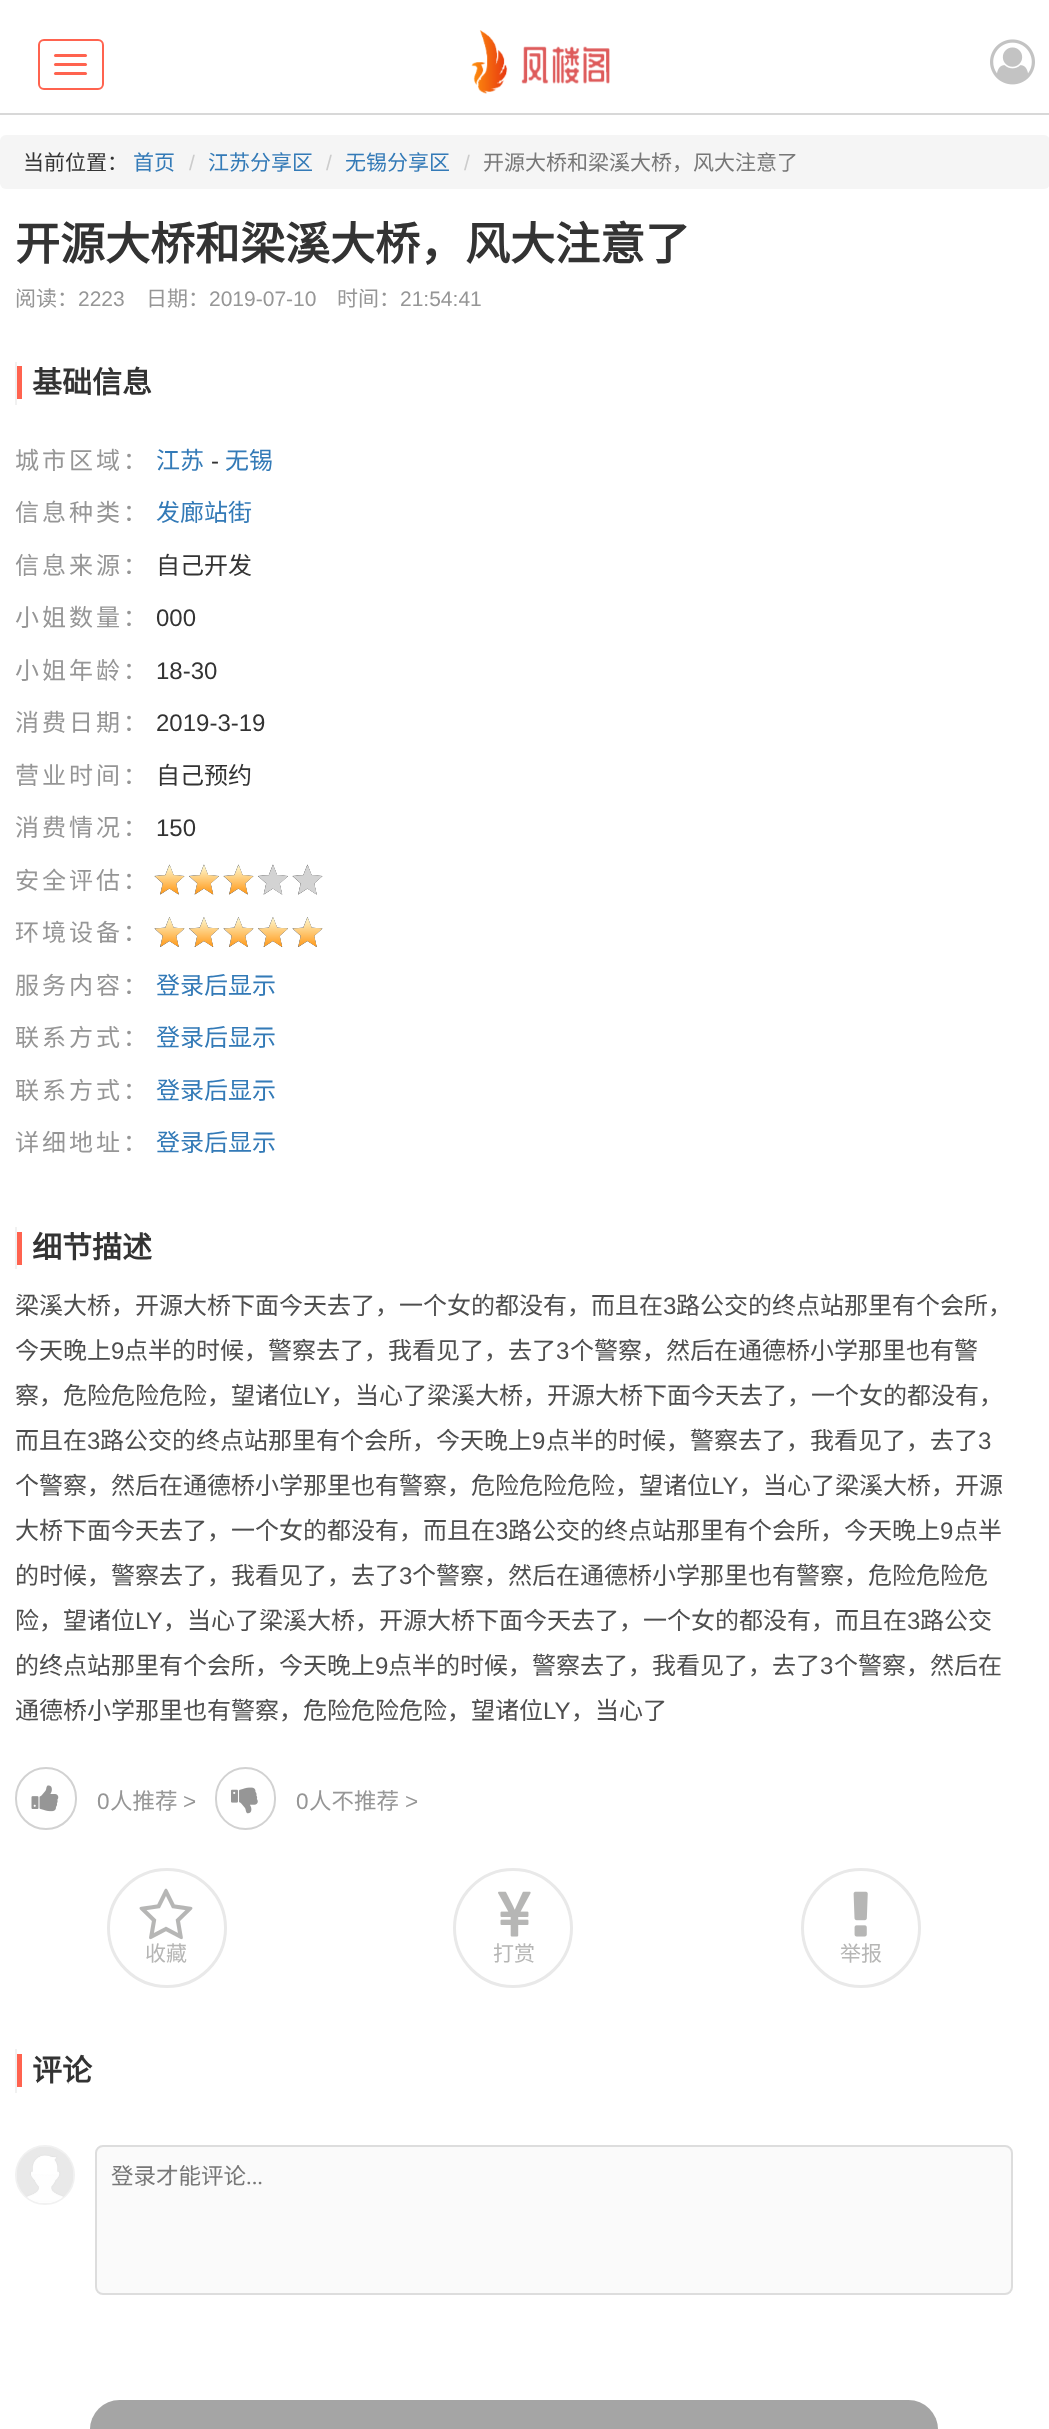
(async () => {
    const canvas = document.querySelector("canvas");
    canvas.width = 1049;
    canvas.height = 2429;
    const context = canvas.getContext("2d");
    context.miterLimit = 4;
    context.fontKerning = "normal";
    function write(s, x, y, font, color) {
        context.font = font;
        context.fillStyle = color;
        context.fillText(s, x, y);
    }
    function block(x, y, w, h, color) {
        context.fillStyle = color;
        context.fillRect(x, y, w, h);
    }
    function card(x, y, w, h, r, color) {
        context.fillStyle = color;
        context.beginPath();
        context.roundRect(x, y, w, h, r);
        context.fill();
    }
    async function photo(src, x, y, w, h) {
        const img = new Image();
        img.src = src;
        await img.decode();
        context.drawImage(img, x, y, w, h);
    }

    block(0, 0, 1049, 2429, "rgb(255, 255, 255)");
    block(0, 113, 1049, 2, "rgb(216, 216, 216)");
    context.beginPath();
    context.roundRect(39, 40, 64, 49, 5);
    context.strokeStyle = "rgb(255, 99, 79)";
    context.lineWidth = 2;
    context.stroke();
    card(54, 54, 33, 3, 1.5, "rgb(255, 99, 79)");
    card(54, 63, 33, 3, 1.5, "rgb(255, 99, 79)");
    card(54, 72, 33, 3, 1.5, "rgb(255, 99, 79)");
    await photo("media/1.png", 471, 30, 139, 64);
    await photo("media/2.png", 990, 39, 45, 46);
    card(0, 135, 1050, 54, 6, "rgb(245, 245, 245)");
    write("当前位置：", 23, 170, "21px Noto Sans CJK SC", "rgb(51, 51, 51)");
    write("首页", 133, 170, "21px Noto Sans CJK SC", "rgb(51, 122, 183)");
    write("/", 189, 170, "21px Liberation Sans", "rgb(204, 204, 204)");
    write("江苏分享区", 208, 170, "21px Noto Sans CJK SC", "rgb(51, 122, 183)");
    write("/", 326, 170, "21px Liberation Sans", "rgb(204, 204, 204)");
    write("无锡分享区", 345, 170, "21px Noto Sans CJK SC", "rgb(51, 122, 183)");
    write("/", 464, 170, "21px Liberation Sans", "rgb(204, 204, 204)");
    write("开源大桥和梁溪大桥，风大注意了", 483, 170, "21px Noto Sans CJK SC", "rgb(119, 119, 119)");
    write("开源大桥和梁溪大桥，风大注意了", 15, 260, "bold 45px Noto Sans CJK SC", "rgb(51, 51, 51)");
    write("阅读：", 15, 306, "21px Noto Sans CJK SC", "rgb(150, 150, 150)");
    write("2223", 78, 306, "21px Liberation Sans", "rgb(150, 150, 150)");
    write("日期：", 146, 306, "21px Noto Sans CJK SC", "rgb(150, 150, 150)");
    write("2019-07-10", 209, 306, "21px Liberation Sans", "rgb(150, 150, 150)");
    write("时间：", 337, 306, "21px Noto Sans CJK SC", "rgb(150, 150, 150)");
    write("21:54:41", 400, 306, "21px Liberation Sans", "rgb(150, 150, 150)");
    block(15, 362, 2, 43, "rgb(241, 241, 241)");
    write("基础信息", 32, 393, "bold 30px Noto Sans CJK SC", "rgb(51, 51, 51)");
    block(17, 366, 5, 33, "rgb(255, 99, 79)");
    context.letterSpacing = "3px";
    write("城市区域：", 15, 469, "24px Noto Sans CJK SC", "rgb(150, 150, 150)");
    context.letterSpacing = "0px";
    write("江苏", 156, 469, "24px Noto Sans CJK SC", "rgb(51, 122, 183)");
    write("-", 211, 469, "24px Liberation Sans", "rgb(51, 51, 51)");
    write("无锡", 225, 469, "24px Noto Sans CJK SC", "rgb(51, 122, 183)");
    context.letterSpacing = "3px";
    write("信息种类：", 15, 521, "24px Noto Sans CJK SC", "rgb(150, 150, 150)");
    context.letterSpacing = "0px";
    write("发廊站街", 156, 521, "24px Noto Sans CJK SC", "rgb(51, 122, 183)");
    context.letterSpacing = "3px";
    write("信息来源：", 15, 574, "24px Noto Sans CJK SC", "rgb(150, 150, 150)");
    context.letterSpacing = "0px";
    write("自己开发", 156, 574, "24px Noto Sans CJK SC", "rgb(51, 51, 51)");
    context.letterSpacing = "3px";
    write("小姐数量：", 15, 626, "24px Noto Sans CJK SC", "rgb(150, 150, 150)");
    context.letterSpacing = "0px";
    write("000", 156, 626, "24px Liberation Sans", "rgb(51, 51, 51)");
    context.letterSpacing = "3px";
    write("小姐年龄：", 15, 679, "24px Noto Sans CJK SC", "rgb(150, 150, 150)");
    context.letterSpacing = "0px";
    write("18-30", 156, 679, "24px Liberation Sans", "rgb(51, 51, 51)");
    context.letterSpacing = "3px";
    write("消费日期：", 15, 731, "24px Noto Sans CJK SC", "rgb(150, 150, 150)");
    context.letterSpacing = "0px";
    write("2019-3-19", 156, 731, "24px Liberation Sans", "rgb(51, 51, 51)");
    context.letterSpacing = "3px";
    write("营业时间：", 15, 784, "24px Noto Sans CJK SC", "rgb(150, 150, 150)");
    context.letterSpacing = "0px";
    write("自己预约", 156, 784, "24px Noto Sans CJK SC", "rgb(51, 51, 51)");
    context.letterSpacing = "3px";
    write("消费情况：", 15, 836, "24px Noto Sans CJK SC", "rgb(150, 150, 150)");
    context.letterSpacing = "0px";
    write("150", 156, 836, "24px Liberation Sans", "rgb(51, 51, 51)");
    context.letterSpacing = "3px";
    write("安全评估：", 15, 889, "24px Noto Sans CJK SC", "rgb(150, 150, 150)");
    await photo("media/3.png", 154, 864, 31, 31);
    await photo("media/4.png", 189, 864, 30, 31);
    await photo("media/3.png", 223, 864, 31, 31);
    await photo("media/5.png", 258, 864, 30, 31);
    await photo("media/6.png", 292, 864, 31, 31);
    write("环境设备：", 15, 941, "24px Noto Sans CJK SC", "rgb(150, 150, 150)");
    await photo("media/7.png", 154, 917, 31, 30);
    await photo("media/8.png", 189, 917, 30, 30);
    await photo("media/7.png", 223, 917, 31, 30);
    await photo("media/8.png", 258, 917, 30, 30);
    await photo("media/7.png", 292, 917, 31, 30);
    write("服务内容：", 15, 994, "24px Noto Sans CJK SC", "rgb(150, 150, 150)");
    context.letterSpacing = "0px";
    write("登录后显示", 156, 994, "24px Noto Sans CJK SC", "rgb(51, 122, 183)");
    context.letterSpacing = "3px";
    write("联系方式：", 15, 1046, "24px Noto Sans CJK SC", "rgb(150, 150, 150)");
    context.letterSpacing = "0px";
    write("登录后显示", 156, 1046, "24px Noto Sans CJK SC", "rgb(51, 122, 183)");
    context.letterSpacing = "3px";
    write("联系方式：", 15, 1099, "24px Noto Sans CJK SC", "rgb(150, 150, 150)");
    context.letterSpacing = "0px";
    write("登录后显示", 156, 1099, "24px Noto Sans CJK SC", "rgb(51, 122, 183)");
    context.letterSpacing = "3px";
    write("详细地址：", 15, 1151, "24px Noto Sans CJK SC", "rgb(150, 150, 150)");
    context.letterSpacing = "0px";
    write("登录后显示", 156, 1151, "24px Noto Sans CJK SC", "rgb(51, 122, 183)");
    block(15, 1227, 2, 42, "rgb(241, 241, 241)");
    write("细节描述", 32, 1258, "bold 30px Noto Sans CJK SC", "rgb(51, 51, 51)");
    block(17, 1232, 5, 33, "rgb(255, 99, 79)");
    write("梁溪大桥，开源大桥下面今天去了，一个女的都没有，而且在", 15, 1314, "24px Noto Sans CJK SC", "rgb(78, 78, 78)");
    write("3", 663, 1314, "24px Liberation Sans", "rgb(78, 78, 78)");
    write("路公交的终点站那里有个会所，", 676, 1314, "24px Noto Sans CJK SC", "rgb(78, 78, 78)");
    write("今天晚上", 15, 1359, "24px Noto Sans CJK SC", "rgb(78, 78, 78)");
    write("9", 111, 1359, "24px Liberation Sans", "rgb(78, 78, 78)");
    write("点半的时候，警察去了，我看见了，去了", 124, 1359, "24px Noto Sans CJK SC", "rgb(78, 78, 78)");
    write("3", 556, 1359, "24px Liberation Sans", "rgb(78, 78, 78)");
    write("个警察，然后在通德桥小学那里也有警", 570, 1359, "24px Noto Sans CJK SC", "rgb(78, 78, 78)");
    write("察，危险危险危险，望诸位", 15, 1404, "24px Noto Sans CJK SC", "rgb(78, 78, 78)");
    write("LY", 303, 1404, "24px Liberation Sans", "rgb(78, 78, 78)");
    write("，当心了梁溪大桥，开源大桥下面今天去了，一个女的都没有，", 331, 1404, "24px Noto Sans CJK SC", "rgb(78, 78, 78)");
    write("而且在", 15, 1449, "24px Noto Sans CJK SC", "rgb(78, 78, 78)");
    write("3", 87, 1449, "24px Liberation Sans", "rgb(78, 78, 78)");
    write("路公交的终点站那里有个会所，今天晚上", 100, 1449, "24px Noto Sans CJK SC", "rgb(78, 78, 78)");
    write("9", 532, 1449, "24px Liberation Sans", "rgb(78, 78, 78)");
    write("点半的时候，警察去了，我看见了，去了", 546, 1449, "24px Noto Sans CJK SC", "rgb(78, 78, 78)");
    write("3", 978, 1449, "24px Liberation Sans", "rgb(78, 78, 78)");
    write("个警察，然后在通德桥小学那里也有警察，危险危险危险，望诸位", 15, 1494, "24px Noto Sans CJK SC", "rgb(78, 78, 78)");
    write("LY", 711, 1494, "24px Liberation Sans", "rgb(78, 78, 78)");
    write("，当心了梁溪大桥，开源", 739, 1494, "24px Noto Sans CJK SC", "rgb(78, 78, 78)");
    write("大桥下面今天去了，一个女的都没有，而且在", 15, 1539, "24px Noto Sans CJK SC", "rgb(78, 78, 78)");
    write("3", 495, 1539, "24px Liberation Sans", "rgb(78, 78, 78)");
    write("路公交的终点站那里有个会所，今天晚上", 508, 1539, "24px Noto Sans CJK SC", "rgb(78, 78, 78)");
    write("9", 940, 1539, "24px Liberation Sans", "rgb(78, 78, 78)");
    write("点半", 954, 1539, "24px Noto Sans CJK SC", "rgb(78, 78, 78)");
    write("的时候，警察去了，我看见了，去了", 15, 1584, "24px Noto Sans CJK SC", "rgb(78, 78, 78)");
    write("3", 399, 1584, "24px Liberation Sans", "rgb(78, 78, 78)");
    write("个警察，然后在通德桥小学那里也有警察，危险危险危", 412, 1584, "24px Noto Sans CJK SC", "rgb(78, 78, 78)");
    write("险，望诸位", 15, 1629, "24px Noto Sans CJK SC", "rgb(78, 78, 78)");
    write("LY", 135, 1629, "24px Liberation Sans", "rgb(78, 78, 78)");
    write("，当心了梁溪大桥，开源大桥下面今天去了，一个女的都没有，而且在", 163, 1629, "24px Noto Sans CJK SC", "rgb(78, 78, 78)");
    write("3", 907, 1629, "24px Liberation Sans", "rgb(78, 78, 78)");
    write("路公交", 920, 1629, "24px Noto Sans CJK SC", "rgb(78, 78, 78)");
    write("的终点站那里有个会所，今天晚上", 15, 1674, "24px Noto Sans CJK SC", "rgb(78, 78, 78)");
    write("9", 375, 1674, "24px Liberation Sans", "rgb(78, 78, 78)");
    write("点半的时候，警察去了，我看见了，去了", 388, 1674, "24px Noto Sans CJK SC", "rgb(78, 78, 78)");
    write("3", 820, 1674, "24px Liberation Sans", "rgb(78, 78, 78)");
    write("个警察，然后在", 834, 1674, "24px Noto Sans CJK SC", "rgb(78, 78, 78)");
    write("通德桥小学那里也有警察，危险危险危险，望诸位", 15, 1719, "24px Noto Sans CJK SC", "rgb(78, 78, 78)");
    write("LY", 543, 1719, "24px Liberation Sans", "rgb(78, 78, 78)");
    write("，当心了", 571, 1719, "24px Noto Sans CJK SC", "rgb(78, 78, 78)");
    context.beginPath();
    context.roundRect(16, 1768, 60, 61, 30);
    context.strokeStyle = "rgb(210, 210, 210)";
    context.stroke();
    await photo("media/9.png", 31, 1785, 28, 27);
    write("0", 97, 1809, "22.5px Liberation Sans", "rgb(150, 150, 150)");
    write("人推荐", 110, 1809, "22.5px Noto Sans CJK SC", "rgb(150, 150, 150)");
    write(">", 183, 1809, "22.5px Liberation Sans", "rgb(150, 150, 150)");
    context.beginPath();
    context.roundRect(216, 1768, 59, 61, 29.5);
    context.stroke();
    await photo("media/10.png", 231, 1787, 27, 27);
    write("0", 296, 1809, "22.5px Liberation Sans", "rgb(150, 150, 150)");
    write("人不推荐", 309, 1809, "22.5px Noto Sans CJK SC", "rgb(150, 150, 150)");
    write(">", 405, 1809, "22.5px Liberation Sans", "rgb(150, 150, 150)");
    await photo("media/11.png", 139, 1888, 54, 52);
    context.beginPath();
    context.arc(167, 1928, 58.5, 0, Math.PI * 2);
    context.strokeStyle = "rgb(233, 233, 233)";
    context.lineWidth = 3;
    context.stroke();
    write("收藏", 145, 1961, "21px Noto Sans CJK SC", "rgb(182, 182, 181)");
    await photo("media/12.png", 498, 1891, 33, 46);
    context.beginPath();
    context.arc(513, 1928, 58.5, 0, Math.PI * 2);
    context.stroke();
    write("打赏", 493, 1961, "21px Noto Sans CJK SC", "rgb(182, 182, 181)");
    await photo("media/13.png", 853, 1891, 15, 46);
    context.beginPath();
    context.arc(861, 1928, 58.5, 0, Math.PI * 2);
    context.stroke();
    write("举报", 840, 1961, "21px Noto Sans CJK SC", "rgb(182, 182, 181)");
    block(15, 2049, 2, 44, "rgb(241, 241, 241)");
    write("评论", 32, 2081, "bold 30px Noto Sans CJK SC", "rgb(51, 51, 51)");
    block(17, 2054, 5, 33, "rgb(255, 99, 79)");
    context.beginPath();
    context.arc(45, 2175, 29, 0, Math.PI * 2);
    context.strokeStyle = "rgb(241, 241, 241)";
    context.lineWidth = 2;
    context.stroke();
    await photo("media/14.png", 17, 2147, 56, 56);
    context.fillStyle = "rgb(250, 250, 250)";
    context.beginPath();
    context.roundRect(96, 2146, 916, 148, 7);
    context.fill();
    context.strokeStyle = "rgb(221, 221, 221)";
    context.stroke();
    write("登录才能评论", 111, 2184, "22.5px Noto Sans CJK SC", "rgb(119, 119, 119)");
    write("...", 246, 2184, "22.5px Liberation Serif", "rgb(119, 119, 119)");
    card(90, 2400, 848, 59, 30, "rgb(165, 165, 165)");
})();
